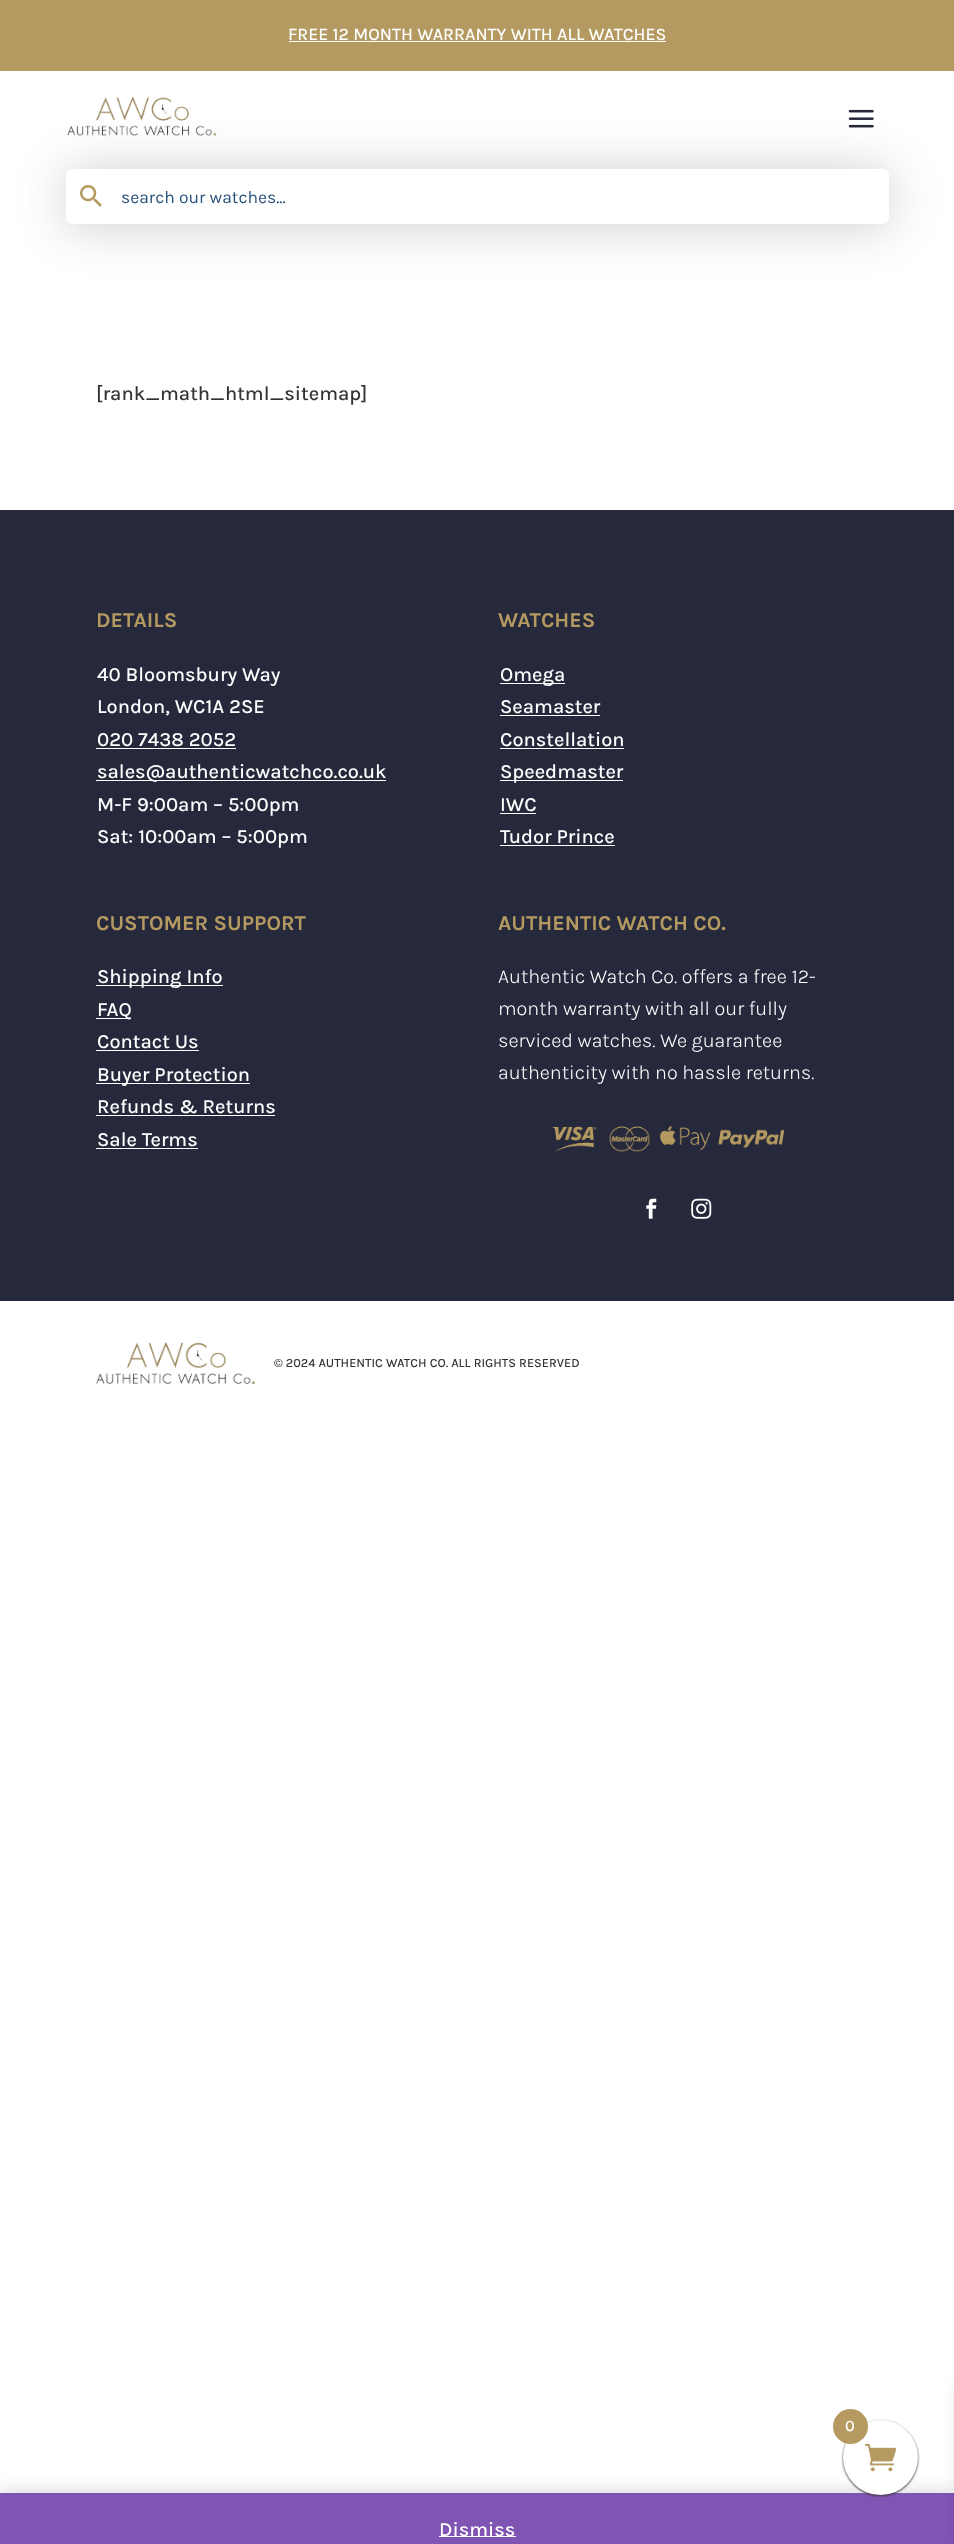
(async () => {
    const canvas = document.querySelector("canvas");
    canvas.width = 954;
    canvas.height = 2544;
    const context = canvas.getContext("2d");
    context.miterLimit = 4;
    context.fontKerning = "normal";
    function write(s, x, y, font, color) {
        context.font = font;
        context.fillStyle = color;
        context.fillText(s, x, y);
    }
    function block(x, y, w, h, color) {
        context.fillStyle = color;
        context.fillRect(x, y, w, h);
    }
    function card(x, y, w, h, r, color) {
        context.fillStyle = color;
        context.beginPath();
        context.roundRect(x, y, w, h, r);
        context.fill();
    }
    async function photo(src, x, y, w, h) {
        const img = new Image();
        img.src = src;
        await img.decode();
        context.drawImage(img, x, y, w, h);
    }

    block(0, 0, 954, 2544, "rgb(255, 255, 255)");
    block(0, 0, 954, 71, "rgb(180, 154, 97)");
    write("FREE 12 MONTH WARRANTY WITH ALL WATCHES", 288, 40, "500 17.5px Karla", "rgb(255, 255, 255)");
    block(289, 41, 377, 1, "rgb(255, 255, 255)");
    await photo("media/1.png", 67, 96, 150, 40);
    await photo("media/2.png", 848, 109, 26, 19);
    context.fillStyle = "rgba(0, 0, 0, 0.2)";
    context.filter = "blur(25px)";
    context.beginPath();
    context.roundRect(66, 171, 823, 55, 6);
    context.fill();
    context.filter = "none";
    card(66, 169, 823, 55, 6, "rgb(255, 255, 255)");
    await photo("media/3.png", 80, 185, 22, 22);
    write("search our watches...", 121, 203, "17.5px Karla", "rgb(41, 82, 124)");
    write("[rank_math_html_sitemap]", 96, 400, "500 20px Karla", "rgb(51, 51, 51)");
    block(0, 510, 954, 791, "rgb(37, 41, 59)");
    write("DETAILS", 96, 627, "bold 21.25px Karla", "rgb(180, 154, 97)");
    write("40 Bloomsbury Way", 97, 681, "500 20px Karla", "rgb(255, 255, 255)");
    write("London, WC1A 2SE", 97, 713, "500 20px Karla", "rgb(255, 255, 255)");
    write("020 7438 2052", 97, 746, "500 20px Karla", "rgb(255, 255, 255)");
    block(96, 748, 140, 1, "rgb(255, 255, 255)");
    block(96, 780, 290, 1, "rgb(255, 255, 255)");
    write("sales@authenticwatchco.co.uk", 97, 778, "500 20px Karla", "rgb(255, 255, 255)");
    write("M-F 9:00am – 5:00pm", 97, 811, "500 20px Karla", "rgb(255, 255, 255)");
    write("Sat: 10:00am – 5:00pm", 97, 843, "500 20px Karla", "rgb(255, 255, 255)");
    write("WATCHES", 498, 627, "bold 21.25px Karla", "rgb(180, 154, 97)");
    block(500, 683, 65, 1, "rgb(255, 255, 255)");
    write("Omega", 500, 681, "500 20px Karla", "rgb(255, 255, 255)");
    write("Seamaster", 500, 713, "500 20px Karla", "rgb(255, 255, 255)");
    block(500, 715, 100, 1, "rgb(255, 255, 255)");
    write("Constellation", 500, 746, "500 20px Karla", "rgb(255, 255, 255)");
    block(500, 748, 124, 1, "rgb(255, 255, 255)");
    block(500, 780, 123, 1, "rgb(255, 255, 255)");
    write("Speedmaster", 500, 778, "500 20px Karla", "rgb(255, 255, 255)");
    write("IWC", 500, 811, "500 20px Karla", "rgb(255, 255, 255)");
    block(500, 813, 36, 1, "rgb(255, 255, 255)");
    write("Tudor Prince", 500, 843, "500 20px Karla", "rgb(255, 255, 255)");
    block(500, 845, 115, 1, "rgb(255, 255, 255)");
    write("CUSTOMER SUPPORT", 96, 930, "bold 21.25px Karla", "rgb(180, 154, 97)");
    block(96, 985, 127, 1, "rgb(255, 255, 255)");
    write("Shipping Info", 97, 983, "500 20px Karla", "rgb(255, 255, 255)");
    block(96, 1018, 35, 1, "rgb(255, 255, 255)");
    write("FAQ", 97, 1016, "500 20px Karla", "rgb(255, 255, 255)");
    write("Contact Us", 97, 1048, "500 20px Karla", "rgb(255, 255, 255)");
    block(96, 1050, 103, 1, "rgb(255, 255, 255)");
    block(96, 1083, 154, 1, "rgb(255, 255, 255)");
    write("Buyer Protection", 97, 1081, "500 20px Karla", "rgb(255, 255, 255)");
    write("Refunds & Returns", 97, 1113, "500 20px Karla", "rgb(255, 255, 255)");
    block(96, 1115, 179, 1, "rgb(255, 255, 255)");
    write("Sale Terms", 97, 1146, "500 20px Karla", "rgb(255, 255, 255)");
    block(96, 1148, 102, 1, "rgb(255, 255, 255)");
    write("AUTHENTIC WATCH CO.", 498, 930, "bold 21.25px Karla", "rgb(180, 154, 97)");
    write("Authentic Watch Co. offers a free 12-", 498, 983, "300 20px Karla", "rgb(255, 255, 255)");
    write("month warranty with all our fully", 498, 1015, "300 20px Karla", "rgb(255, 255, 255)");
    write("serviced watches. We guarantee", 498, 1047, "300 20px Karla", "rgb(255, 255, 255)");
    write("authenticity with no hassle returns.", 498, 1079, "300 20px Karla", "rgb(255, 255, 255)");
    await photo("media/4.png", 552, 1126, 232, 26);
    await photo("media/5.png", 646, 1198, 11, 21);
    await photo("media/6.png", 691, 1198, 21, 21);
    await photo("media/7.png", 96, 1341, 159, 44);
    write("© 2024 AUTHENTIC WATCH CO. ALL RIGHTS RESERVED", 274, 1367, "500 12.5px Karla", "rgb(51, 51, 51)");
    context.fillStyle = "rgba(0, 0, 0, 0.2)";
    context.filter = "blur(10px)";
    context.beginPath();
    context.rect(0, 2494, 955, 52);
    context.fill();
    context.filter = "none";
    block(0, 2493, 954, 51, "rgb(127, 84, 179)");
    context.fillStyle = "rgb(51, 51, 51)";
    context.filter = "blur(1px)";
    context.beginPath();
    context.roundRect(843, 2421, 75, 75, 37.5);
    context.fill();
    context.filter = "none";
    context.fillStyle = "rgb(255, 255, 255)";
    context.beginPath();
    context.arc(880.5, 2457.5, 37.5, 0, Math.PI * 2);
    context.fill();
    await photo("media/8.png", 865, 2443, 32, 29);
    context.fillStyle = "rgb(180, 154, 97)";
    context.beginPath();
    context.arc(850.5, 2426.5, 17.5, 0, Math.PI * 2);
    context.fill();
    write("0", 845, 2431, "500 16px Karla", "rgb(255, 255, 255)");
    context.fillStyle = "rgba(0, 0, 0, 0.1)";
    context.filter = "blur(6px)";
    context.beginPath();
    context.rect(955, 2385, 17, 154);
    context.fill();
    context.filter = "none";
    block(439, 2536, 77, 1, "rgb(255, 255, 255)");
    write("Dismiss", 439, 2536, "500 20px Karla", "rgb(255, 255, 255)");
})();
